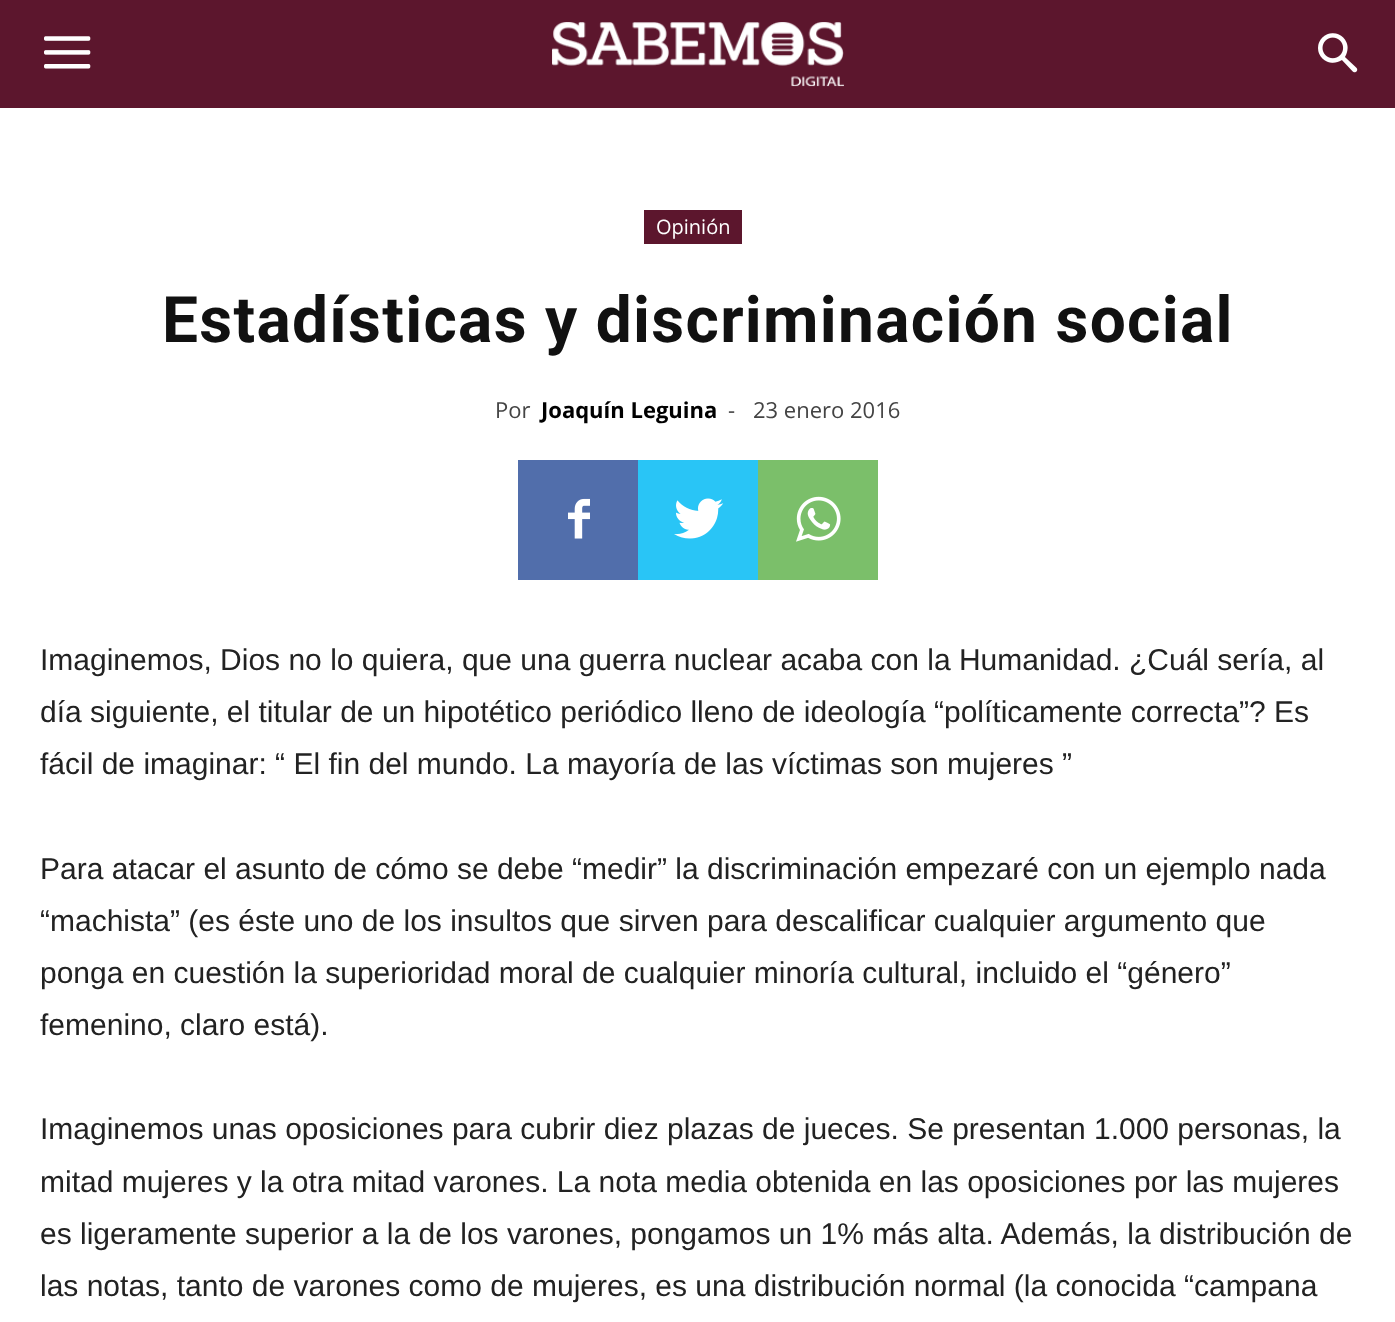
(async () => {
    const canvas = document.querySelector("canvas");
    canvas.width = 1395;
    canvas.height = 1322;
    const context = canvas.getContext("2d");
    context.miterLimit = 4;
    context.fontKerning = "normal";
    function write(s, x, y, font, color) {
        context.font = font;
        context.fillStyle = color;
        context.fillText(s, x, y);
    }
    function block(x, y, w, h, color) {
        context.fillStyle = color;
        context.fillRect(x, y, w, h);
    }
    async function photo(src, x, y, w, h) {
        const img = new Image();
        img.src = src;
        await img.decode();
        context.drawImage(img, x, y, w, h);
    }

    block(0, 0, 1395, 1322, "rgb(255, 255, 255)");
    block(0, 0, 1395, 108, "rgb(92, 22, 45)");
    await photo("media/1.png", 44, 36, 47, 33);
    await photo("media/2.png", 552, 22, 292, 65);
    await photo("media/3.png", 1318, 33, 40, 40);
    block(644, 210, 98, 34, "rgb(92, 22, 45)");
    write("Opinión", 656, 234, "20px Open Sans", "rgb(255, 255, 255)");
    context.letterSpacing = "1.3px";
    write("Estadísticas y discriminación social", 162, 342, "bold 64px Roboto", "rgb(17, 17, 17)");
    context.letterSpacing = "0px";
    write("Por", 495, 418, "22px Open Sans", "rgb(68, 68, 68)");
    write("Joaquín Leguina", 541, 418, "bold 22px Open Sans", "rgb(0, 0, 0)");
    write("-", 728, 418, "22px Open Sans", "rgb(68, 68, 68)");
    write("23 enero 2016", 753, 418, "22px Open Sans", "rgb(68, 68, 68)");
    block(518, 460, 120, 120, "rgb(81, 110, 171)");
    await photo("media/4.png", 568, 498, 22, 41);
    block(638, 460, 120, 120, "rgb(41, 197, 246)");
    await photo("media/5.png", 674, 498, 50, 41);
    block(758, 460, 120, 120, "rgb(123, 191, 106)");
    await photo("media/6.png", 796, 496, 45, 46);
    write("Imaginemos, Dios no lo quiera, que una guerra nuclear acaba con la Humanidad. ¿Cuál sería, al", 40, 670, "30px Liberation Sans", "rgb(34, 34, 34)");
    write("día siguiente, el titular de un hipotético periódico lleno de ideología “políticamente correcta”? Es", 40, 722, "30px Liberation Sans", "rgb(34, 34, 34)");
    write("fácil de imaginar: “ El fin del mundo. La mayoría de las víctimas son mujeres ”", 40, 774, "30px Liberation Sans", "rgb(34, 34, 34)");
    write("Para atacar el asunto de cómo se debe “medir” la discriminación empezaré con un ejemplo nada", 40, 879, "30px Liberation Sans", "rgb(34, 34, 34)");
    write("“machista” (es éste uno de los insultos que sirven para descalificar cualquier argumento que", 40, 931, "30px Liberation Sans", "rgb(34, 34, 34)");
    write("ponga en cuestión la superioridad moral de cualquier minoría cultural, incluido el “género”", 40, 983, "30px Liberation Sans", "rgb(34, 34, 34)");
    write("femenino, claro está).", 40, 1035, "30px Liberation Sans", "rgb(34, 34, 34)");
    write("Imaginemos unas oposiciones para cubrir diez plazas de jueces. Se presentan 1.000 personas, la", 40, 1139, "30px Liberation Sans", "rgb(34, 34, 34)");
    write("mitad mujeres y la otra mitad varones. La nota media obtenida en las oposiciones por las mujeres", 40, 1192, "30px Liberation Sans", "rgb(34, 34, 34)");
    write("es ligeramente superior a la de los varones, pongamos un 1% más alta. Además, la distribución de", 40, 1244, "30px Liberation Sans", "rgb(34, 34, 34)");
    write("las notas, tanto de varones como de mujeres, es una distribución normal (la conocida “campana", 40, 1296, "30px Liberation Sans", "rgb(34, 34, 34)");
})();
